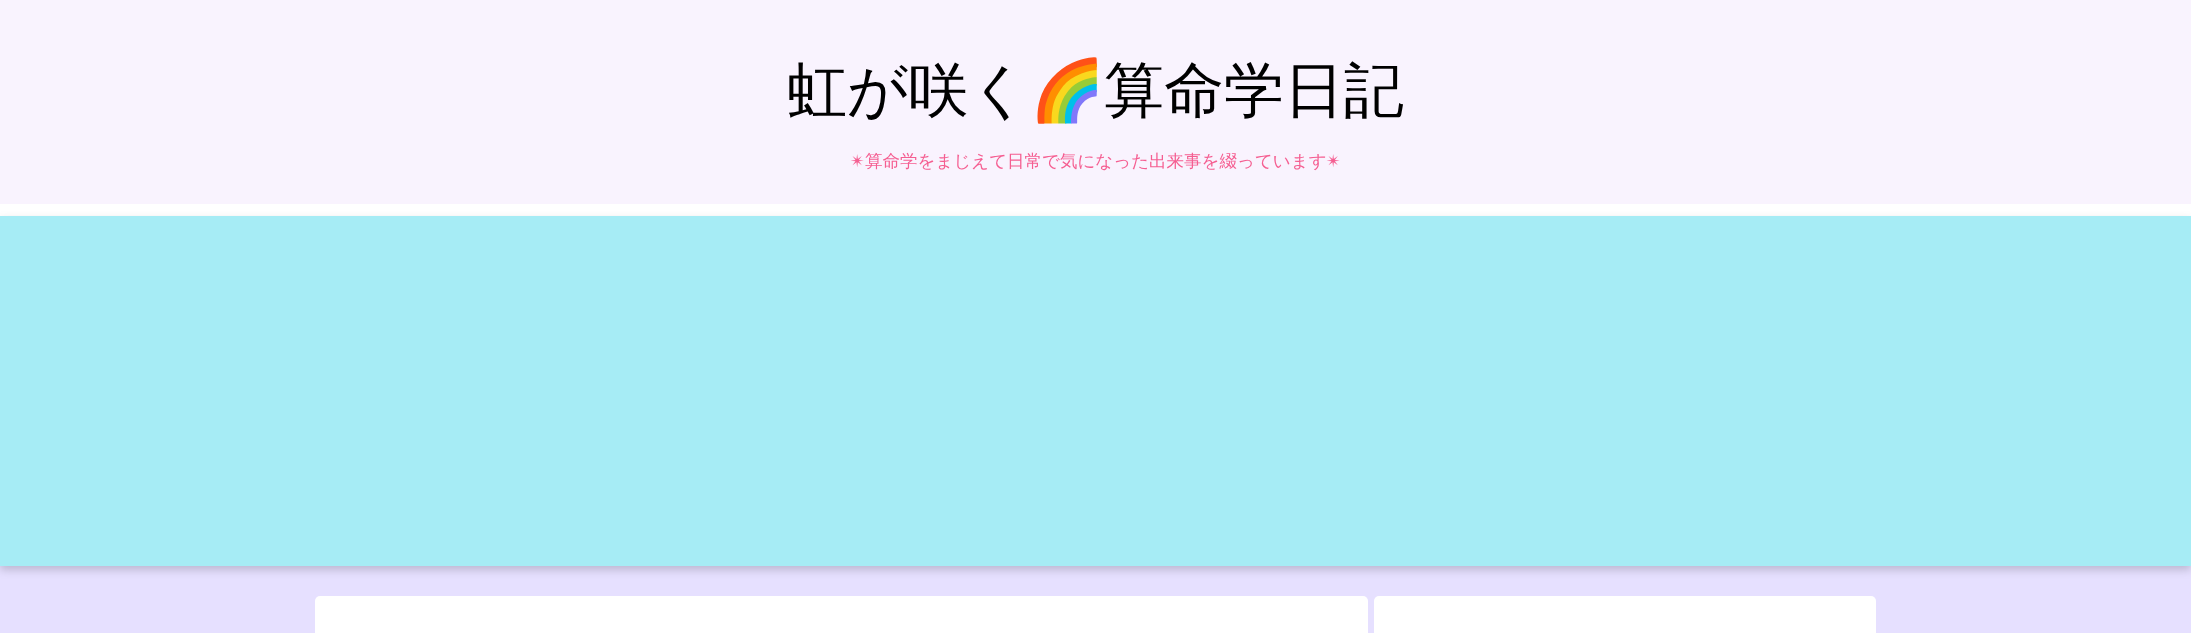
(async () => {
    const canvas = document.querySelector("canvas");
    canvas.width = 2191;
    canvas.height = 633;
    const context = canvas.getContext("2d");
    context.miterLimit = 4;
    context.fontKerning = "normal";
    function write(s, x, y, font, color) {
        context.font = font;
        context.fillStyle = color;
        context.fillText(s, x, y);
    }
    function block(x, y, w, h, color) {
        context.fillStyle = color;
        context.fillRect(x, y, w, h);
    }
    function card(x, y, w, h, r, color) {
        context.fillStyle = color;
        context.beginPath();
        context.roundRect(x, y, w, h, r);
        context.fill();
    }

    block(0, 0, 2191, 633, "rgb(230, 224, 255)");
    block(0, 204, 2191, 12, "rgb(255, 255, 255)");
    block(0, 0, 2191, 204, "rgb(249, 243, 254)");
    write("虹が咲く", 787, 111, "500 60px WenQuanYi Zen Hei", "rgb(0, 0, 0)");
    write("🌈", 1030, 111, "60px Noto Color Emoji", "rgb(0, 0, 0)");
    write("算命学日記", 1104, 111, "500 60px WenQuanYi Zen Hei", "rgb(0, 0, 0)");
    write("✴", 850, 167, "17.5px DejaVu Sans", "rgb(245, 94, 145)");
    write("算命学をまじえて日常で気になった出来事を綴っています", 865, 167, "500 17.5px WenQuanYi Zen Hei", "rgb(245, 94, 145)");
    write("✴", 1326, 167, "17.5px DejaVu Sans", "rgb(245, 94, 145)");
    context.fillStyle = "rgba(0, 0, 0, 0.18)";
    context.filter = "blur(4px)";
    context.beginPath();
    context.rect(0, 220, 2191, 350);
    context.fill();
    context.filter = "none";
    block(0, 216, 2191, 350, "rgb(166, 236, 245)");
    card(315, 596, 1053, 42, 5, "rgb(255, 255, 255)");
    card(1374, 596, 502, 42, 5, "rgb(255, 255, 255)");
})();
